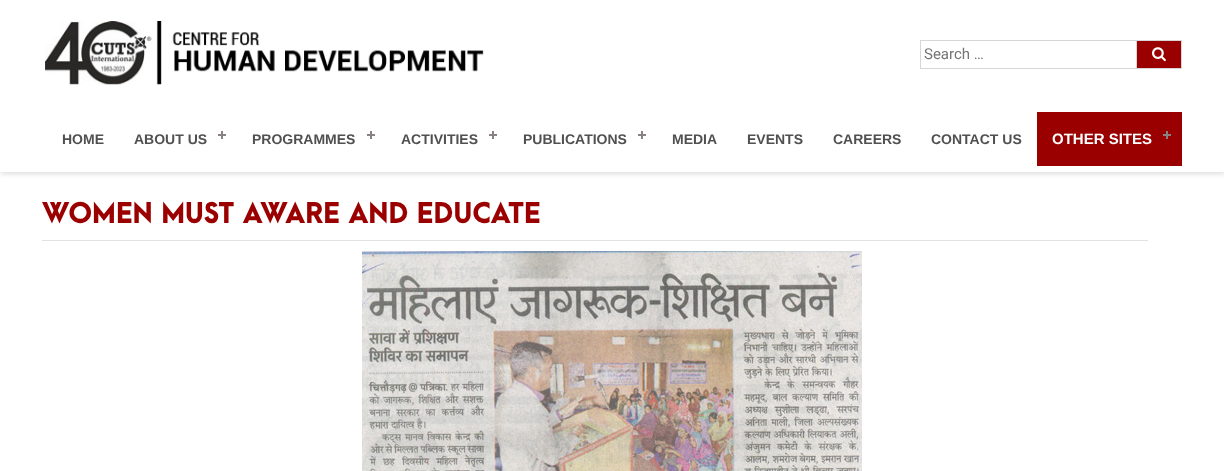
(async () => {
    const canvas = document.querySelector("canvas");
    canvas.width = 1224;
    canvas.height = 471;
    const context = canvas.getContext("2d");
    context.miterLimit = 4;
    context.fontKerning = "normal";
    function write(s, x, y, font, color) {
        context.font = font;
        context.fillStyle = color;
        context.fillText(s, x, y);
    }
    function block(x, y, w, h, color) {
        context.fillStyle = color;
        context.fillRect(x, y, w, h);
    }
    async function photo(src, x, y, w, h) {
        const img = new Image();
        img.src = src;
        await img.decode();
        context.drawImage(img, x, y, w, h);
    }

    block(0, 0, 1224, 471, "rgb(255, 255, 255)");
    context.save();
    context.beginPath();
    context.rect(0, 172, 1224, 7);
    context.clip();
    context.fillStyle = "rgb(222, 222, 222)";
    context.filter = "blur(2.5px)";
    context.beginPath();
    context.rect(1, 2, 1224, 172);
    context.fill();
    context.filter = "none";
    context.restore();
    await photo("media/1.png", 45, 21, 439, 64);
    context.strokeStyle = "rgb(214, 214, 214)";
    context.strokeRect(920.5, 40.5, 216, 28);
    write("Search …", 924, 59, "15px Roboto", "rgb(117, 117, 117)");
    block(1137, 41, 44, 27, "rgb(154, 0, 0)");
    block(1137, 40, 45, 1, "rgb(214, 214, 214)");
    block(1181, 40, 1, 29, "rgb(214, 214, 214)");
    block(1137, 68, 45, 1, "rgb(214, 214, 214)");
    await photo("media/2.png", 1152, 47, 14, 15);
    write("HOME", 62, 144, "bold 14px Liberation Sans", "rgb(80, 80, 80)");
    write("ABOUT US", 134, 144, "bold 14px Liberation Sans", "rgb(80, 80, 80)");
    block(221, 131, 2, 8, "rgb(137, 130, 130)");
    block(218, 134, 8, 2, "rgb(137, 130, 130)");
    write("PROGRAMMES", 252, 144, "bold 14px Liberation Sans", "rgb(80, 80, 80)");
    block(370, 131, 2, 8, "rgb(137, 130, 130)");
    block(367, 134, 8, 2, "rgb(137, 130, 130)");
    write("ACTIVITIES", 401, 144, "bold 14px Liberation Sans", "rgb(80, 80, 80)");
    block(492, 131, 2, 8, "rgb(137, 130, 130)");
    block(489, 134, 8, 2, "rgb(137, 130, 130)");
    write("PUBLICATIONS", 523, 144, "bold 14px Liberation Sans", "rgb(80, 80, 80)");
    block(641, 131, 2, 8, "rgb(137, 130, 130)");
    block(638, 134, 8, 2, "rgb(137, 130, 130)");
    write("MEDIA", 672, 144, "bold 14px Liberation Sans", "rgb(80, 80, 80)");
    write("EVENTS", 747, 144, "bold 14px Liberation Sans", "rgb(80, 80, 80)");
    write("CAREERS", 833, 144, "bold 14px Liberation Sans", "rgb(80, 80, 80)");
    write("CONTACT US", 931, 144, "bold 14px Liberation Sans", "rgb(80, 80, 80)");
    block(1037, 112, 145, 54, "rgb(154, 0, 0)");
    write("OTHER SITES", 1052, 144, "bold 15px Liberation Sans", "rgb(255, 255, 255)");
    block(1166, 131, 2, 8, "rgb(137, 130, 130)");
    block(1163, 134, 8, 2, "rgb(137, 130, 130)");
    block(42, 240, 1106, 1, "rgb(226, 226, 226)");
    write("WOMEN MUST AWARE AND EDUCATE", 42, 223, "900 26px 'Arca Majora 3'", "rgb(155, 0, 0)");
    await photo("media/3.png", 362, 251, 500, 220);
})();
